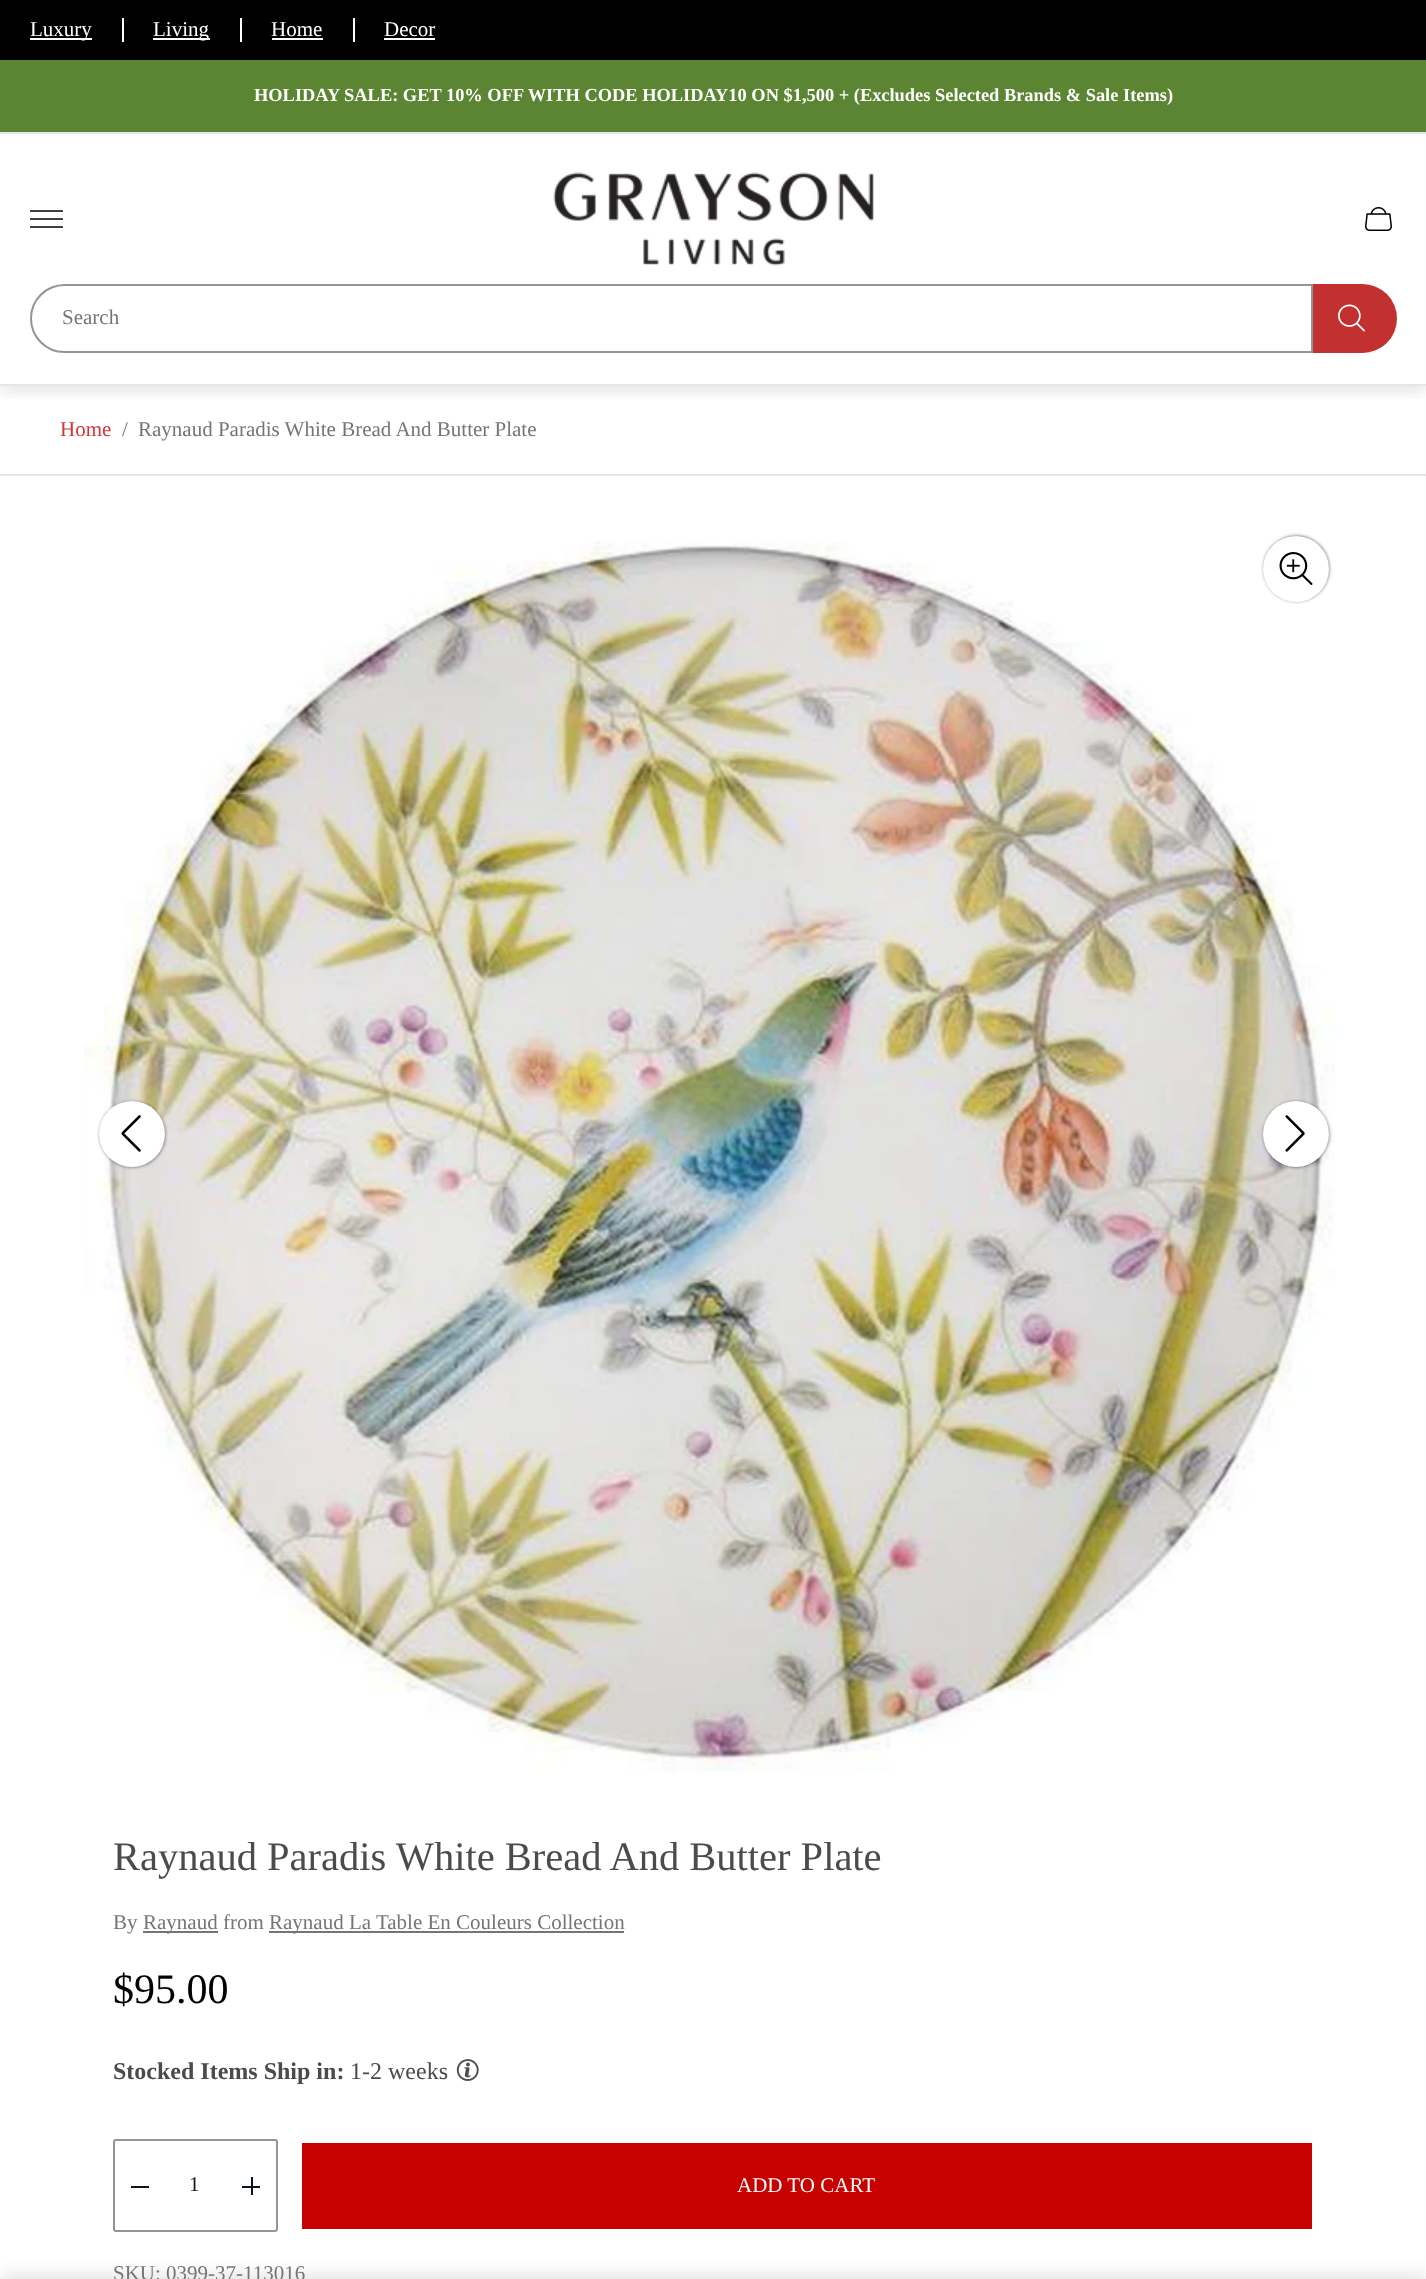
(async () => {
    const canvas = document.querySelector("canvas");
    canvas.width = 1426;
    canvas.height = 2279;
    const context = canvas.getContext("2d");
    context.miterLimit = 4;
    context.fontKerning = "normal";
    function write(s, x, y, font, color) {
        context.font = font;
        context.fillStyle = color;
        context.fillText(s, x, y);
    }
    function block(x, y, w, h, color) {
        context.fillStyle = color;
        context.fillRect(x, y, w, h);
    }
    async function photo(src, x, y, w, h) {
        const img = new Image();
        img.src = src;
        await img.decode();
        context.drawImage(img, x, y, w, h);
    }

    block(0, 0, 1426, 2279, "rgb(255, 255, 255)");
    block(0, 0, 1426, 60, "rgb(0, 0, 0)");
    block(30, 38, 62, 2, "rgb(255, 255, 255)");
    write("Luxury", 30, 36, "21px Liberation Serif", "rgb(255, 255, 255)");
    block(122, 18, 2, 24, "rgb(255, 255, 255)");
    block(153, 38, 57, 2, "rgb(255, 255, 255)");
    write("Living", 153, 36, "21px Liberation Serif", "rgb(255, 255, 255)");
    block(240, 18, 2, 24, "rgb(255, 255, 255)");
    write("Home", 271, 36, "21px Liberation Serif", "rgb(255, 255, 255)");
    block(272, 38, 51, 2, "rgb(255, 255, 255)");
    block(353, 18, 2, 24, "rgb(255, 255, 255)");
    write("Decor", 384, 36, "21px Liberation Serif", "rgb(255, 255, 255)");
    block(384, 38, 51, 2, "rgb(255, 255, 255)");
    block(0, 60, 1426, 72, "rgb(91, 133, 51)");
    block(0, 132, 1426, 2, "rgb(230, 230, 230)");
    write("HOLIDAY SALE: GET 10% OFF WITH CODE HOLIDAY10 ON $1,500 + (Excludes Selected Brands & Sale Items)", 254, 101, "bold 18.4px Liberation Serif", "rgb(255, 255, 255)");
    context.save();
    context.beginPath();
    context.rect(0, 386, 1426, 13);
    context.clip();
    context.fillStyle = "rgba(0, 0, 0, 0.1)";
    context.filter = "blur(8px)";
    context.beginPath();
    context.rect(0, 140, 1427, 252);
    context.fill();
    context.filter = "none";
    context.restore();
    block(0, 384, 1426, 2, "rgb(230, 230, 230)");
    context.beginPath();
    context.moveTo(30, 211);
    context.lineTo(63, 211);
    context.moveTo(30, 219);
    context.lineTo(63, 219);
    context.moveTo(30, 227);
    context.lineTo(63, 227);
    context.strokeStyle = "rgb(0, 0, 0)";
    context.lineWidth = 1.4;
    context.stroke();
    await photo("media/1.png", 553, 172, 322, 94);
    await photo("media/2.png", 1365, 207, 27, 24);
    context.beginPath();
    context.roundRect(31, 285, 1281, 67, [33.5, 0, 0, 33.5]);
    context.strokeStyle = "rgb(148, 148, 148)";
    context.lineWidth = 2;
    context.stroke();
    write("Search", 62, 324, "21px Liberation Serif", "rgb(117, 117, 117)");
    context.fillStyle = "rgb(195, 48, 48)";
    context.beginPath();
    context.roundRect(1313, 284, 84, 69, [0, 34.5, 34.5, 0]);
    context.fill();
    await photo("media/3.png", 1338, 304, 27, 28);
    block(0, 474, 1426, 2, "rgb(230, 230, 230)");
    write("Home", 60, 436, "21px Liberation Serif", "rgb(211, 54, 54)");
    write("/", 122, 436, "21px Liberation Serif", "rgb(117, 117, 117)");
    write("Raynaud Paradis White Bread And Butter Plate", 138, 436, "21px Liberation Serif", "rgb(117, 117, 117)");
    await photo("media/5.png", 84, 541, 1251, 1232);
    context.fillStyle = "rgb(0, 0, 0)";
    context.filter = "blur(2px)";
    context.beginPath();
    context.roundRect(1265, 537, 63, 63, 31.5);
    context.fill();
    context.filter = "none";
    context.fillStyle = "rgb(255, 255, 255)";
    context.beginPath();
    context.arc(1296, 569, 33, 0, Math.PI * 2);
    context.fill();
    await photo("media/4.png", 1279, 552, 34, 33);
    context.fillStyle = "rgb(0, 0, 0)";
    context.filter = "blur(2px)";
    context.beginPath();
    context.roundRect(101, 1103, 63, 63, 31.5);
    context.fill();
    context.filter = "none";
    context.fillStyle = "rgb(255, 255, 255)";
    context.beginPath();
    context.arc(132, 1134, 33, 0, Math.PI * 2);
    context.fill();
    await photo("media/6.png", 121, 1115, 20, 37);
    context.fillStyle = "rgb(0, 0, 0)";
    context.filter = "blur(2px)";
    context.beginPath();
    context.roundRect(1265, 1103, 63, 63, 31.5);
    context.fill();
    context.filter = "none";
    context.fillStyle = "rgb(255, 255, 255)";
    context.beginPath();
    context.arc(1296, 1134, 33, 0, Math.PI * 2);
    context.fill();
    await photo("media/7.png", 1285, 1115, 20, 37);
    write("Raynaud Paradis White Bread And Butter Plate", 113, 1870, "40.5px Liberation Serif", "rgb(75, 75, 75)");
    write("By", 113, 1929, "21px Liberation Serif", "rgb(117, 117, 117)");
    block(143, 1931, 75, 2, "rgb(117, 117, 117)");
    write("Raynaud from", 143, 1929, "21px Liberation Serif", "rgb(117, 117, 117)");
    block(269, 1931, 355, 2, "rgb(117, 117, 117)");
    write("Raynaud La Table En Couleurs Collection", 269, 1929, "21px Liberation Serif", "rgb(117, 117, 117)");
    write("$95.00", 113, 2003, "42px Liberation Serif", "rgb(0, 0, 0)");
    write("Stocked Items Ship in:", 113, 2079, "bold 24px Liberation Serif", "rgb(75, 75, 75)");
    write("1-2 weeks", 350, 2079, "24px Liberation Serif", "rgb(75, 75, 75)");
    await photo("media/8.png", 456, 2059, 23, 22);
    context.beginPath();
    context.roundRect(114, 2140, 163, 91, 2);
    context.stroke();
    block(131, 2186, 18, 2, "rgb(15, 22, 27)");
    write("1", 189, 2191, "21px Liberation Serif", "rgb(15, 22, 27)");
    block(242, 2186, 18, 2, "rgb(15, 22, 27)");
    block(251, 2177, 2, 18, "rgb(15, 22, 27)");
    block(302, 2143, 1010, 86, "rgb(199, 0, 0)");
    write("ADD TO CART", 737, 2192, "21px Liberation Serif", "rgb(255, 255, 255)");
    context.fillStyle = "rgba(0, 0, 0, 0.1)";
    context.filter = "blur(8px)";
    context.beginPath();
    context.rect(0, 2274, 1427, 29);
    context.fill();
    context.filter = "none";
    write("SKU: 0399-37-113016", 113, 2280, "21px Liberation Serif", "rgb(117, 117, 117)");
})();
